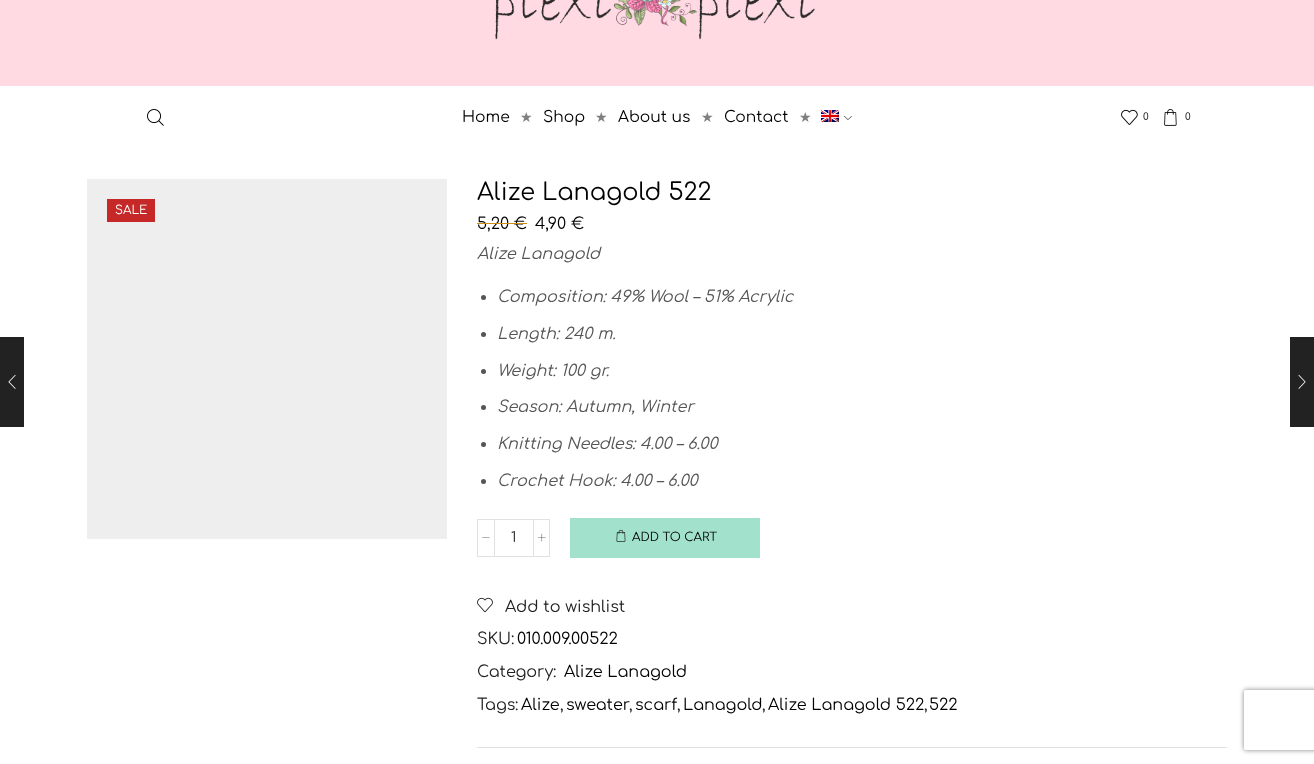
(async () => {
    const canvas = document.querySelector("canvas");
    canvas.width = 1314;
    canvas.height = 764;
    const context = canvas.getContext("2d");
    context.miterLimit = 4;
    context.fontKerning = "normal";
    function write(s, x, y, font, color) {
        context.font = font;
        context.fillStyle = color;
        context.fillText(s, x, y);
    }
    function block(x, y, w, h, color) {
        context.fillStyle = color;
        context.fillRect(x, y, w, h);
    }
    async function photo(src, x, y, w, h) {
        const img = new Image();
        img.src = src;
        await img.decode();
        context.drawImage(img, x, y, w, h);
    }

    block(0, 0, 1314, 764, "rgb(255, 255, 255)");
    block(0, 0, 1314, 86, "rgb(255, 218, 227)");
    await photo("media/1.png", 495, 0, 320, 40);
    await photo("media/2.png", 147, 109, 17, 17);
    write("Home", 462, 122, "15.5px Comfortaa", "rgb(0, 0, 0)");
    write("★", 520, 122, "14px DejaVu Sans", "rgb(128, 128, 128)");
    write("Shop", 543, 122, "15.5px Comfortaa", "rgb(0, 0, 0)");
    write("★", 595, 122, "14px DejaVu Sans", "rgb(128, 128, 128)");
    write("About us", 618, 122, "15.5px Comfortaa", "rgb(0, 0, 0)");
    write("★", 701, 122, "14px DejaVu Sans", "rgb(128, 128, 128)");
    write("Contact", 724, 122, "15.5px Comfortaa", "rgb(0, 0, 0)");
    write("★", 799, 122, "14px DejaVu Sans", "rgb(128, 128, 128)");
    await photo("media/3.png", 821, 110, 18, 12);
    await photo("media/4.png", 844, 116, 8, 4);
    await photo("media/5.png", 1121, 109, 17, 16);
    write("0", 1143, 120, "10px Comfortaa", "rgb(0, 0, 0)");
    await photo("media/6.png", 1164, 109, 13, 17);
    write("0", 1185, 120, "10px Comfortaa", "rgb(0, 0, 0)");
    block(87, 179, 360, 360, "rgb(238, 238, 238)");
    block(107, 199, 48, 23, "rgb(198, 40, 40)");
    write("SALE", 115, 214, "12px Comfortaa", "rgb(255, 255, 255)");
    write("Alize Lanagold 522", 477, 200, "24px Comfortaa", "rgb(0, 0, 0)");
    write("5,20 €", 477, 229, "16px Comfortaa", "rgb(0, 0, 0)");
    block(477, 223, 50, 1, "rgb(203, 144, 19)");
    write("4,90 €", 535, 229, "16px Comfortaa", "rgb(0, 0, 0)");
    write("Alize Lanagold", 477, 259, "italic 16px Comfortaa", "rgb(85, 85, 85)");
    context.beginPath();
    context.arc(483.5, 297.5, 2.5, 0, Math.PI * 2);
    context.fill();
    write("Composition: 49% Wool – 51% Acrylic", 497, 302, "italic 16px Comfortaa", "rgb(85, 85, 85)");
    context.beginPath();
    context.arc(483.5, 334.5, 2.5, 0, Math.PI * 2);
    context.fill();
    write("Length: 240 m.", 497, 339, "italic 16px Comfortaa", "rgb(85, 85, 85)");
    context.beginPath();
    context.arc(483.5, 371.5, 2.5, 0, Math.PI * 2);
    context.fill();
    write("Weight: 100 gr.", 497, 376, "italic 16px Comfortaa", "rgb(85, 85, 85)");
    context.beginPath();
    context.arc(483.5, 407.5, 2.5, 0, Math.PI * 2);
    context.fill();
    write("Season: Autumn, Winter", 497, 412, "italic 16px Comfortaa", "rgb(85, 85, 85)");
    context.beginPath();
    context.arc(483.5, 444.5, 2.5, 0, Math.PI * 2);
    context.fill();
    write("Knitting Needles: 4.00 – 6.00", 497, 449, "italic 16px Comfortaa", "rgb(85, 85, 85)");
    context.beginPath();
    context.arc(483.5, 481.5, 2.5, 0, Math.PI * 2);
    context.fill();
    write("Crochet Hook: 4.00 – 6.00", 497, 486, "italic 16px Comfortaa", "rgb(85, 85, 85)");
    context.strokeStyle = "rgb(225, 225, 225)";
    context.strokeRect(477.5, 519.5, 17, 37);
    await photo("media/7.png", 482, 537, 8, 1);
    block(495, 519, 38, 1, "rgb(225, 225, 225)");
    block(495, 556, 38, 1, "rgb(225, 225, 225)");
    write("1", 511, 542, "14px Comfortaa", "rgb(34, 34, 34)");
    context.strokeRect(533.5, 519.5, 16, 37);
    await photo("media/8.png", 538, 533, 8, 9);
    block(570, 518, 190, 40, "rgb(162, 226, 204)");
    await photo("media/9.png", 616, 529, 10, 13);
    write("ADD TO CART", 632, 541, "12px Comfortaa", "rgb(0, 0, 0)");
    await photo("media/10.png", 477, 597, 16, 16);
    write("Add to wishlist", 505, 612, "16px Comfortaa", "rgb(34, 34, 34)");
    write("SKU:", 477, 644, "16px Comfortaa", "rgb(34, 34, 34)");
    write("010.009.00522", 517, 644, "16px Comfortaa", "rgb(0, 0, 0)");
    write("Category:", 477, 677, "16px Comfortaa", "rgb(34, 34, 34)");
    write("Alize Lanagold", 564, 677, "16px Comfortaa", "rgb(0, 0, 0)");
    write("Tags:", 477, 710, "16px Comfortaa", "rgb(34, 34, 34)");
    write("Alize", 521, 710, "16px Comfortaa", "rgb(0, 0, 0)");
    write(",", 560, 710, "16px Comfortaa", "rgb(34, 34, 34)");
    write("sweater", 566, 710, "16px Comfortaa", "rgb(0, 0, 0)");
    write(",", 629, 710, "16px Comfortaa", "rgb(34, 34, 34)");
    write("scarf", 635, 710, "16px Comfortaa", "rgb(0, 0, 0)");
    write(",", 677, 710, "16px Comfortaa", "rgb(34, 34, 34)");
    write("Lanagold", 683, 710, "16px Comfortaa", "rgb(0, 0, 0)");
    write(",", 762, 710, "16px Comfortaa", "rgb(34, 34, 34)");
    write("Alize Lanagold 522", 768, 710, "16px Comfortaa", "rgb(0, 0, 0)");
    write(",", 924, 710, "16px Comfortaa", "rgb(34, 34, 34)");
    write("522", 929, 710, "16px Comfortaa", "rgb(0, 0, 0)");
    block(477, 747, 750, 1, "rgb(225, 225, 225)");
    block(0, 337, 24, 90, "rgb(34, 34, 34)");
    await photo("media/11.png", 8, 374, 8, 15);
    block(1290, 337, 24, 90, "rgb(34, 34, 34)");
    await photo("media/12.png", 1298, 374, 8, 15);
    context.save();
    context.beginPath();
    context.moveTo(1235, 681);
    context.lineTo(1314, 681);
    context.lineTo(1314, 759);
    context.lineTo(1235, 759);
    context.closePath();
    context.moveTo(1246, 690);
    context.lineTo(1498, 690);
    context.bezierCurveTo(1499, 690, 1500, 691, 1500, 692);
    context.lineTo(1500, 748);
    context.bezierCurveTo(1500, 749, 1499, 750, 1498, 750);
    context.lineTo(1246, 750);
    context.bezierCurveTo(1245, 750, 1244, 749, 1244, 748);
    context.lineTo(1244, 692);
    context.bezierCurveTo(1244, 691, 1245, 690, 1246, 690);
    context.closePath();
    context.clip("evenodd");
    context.fillStyle = "rgb(128, 128, 128)";
    context.filter = "blur(2.5px)";
    context.beginPath();
    context.roundRect(1244, 690, 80, 60, 2);
    context.fill();
    context.filter = "none";
    context.restore();
})();
